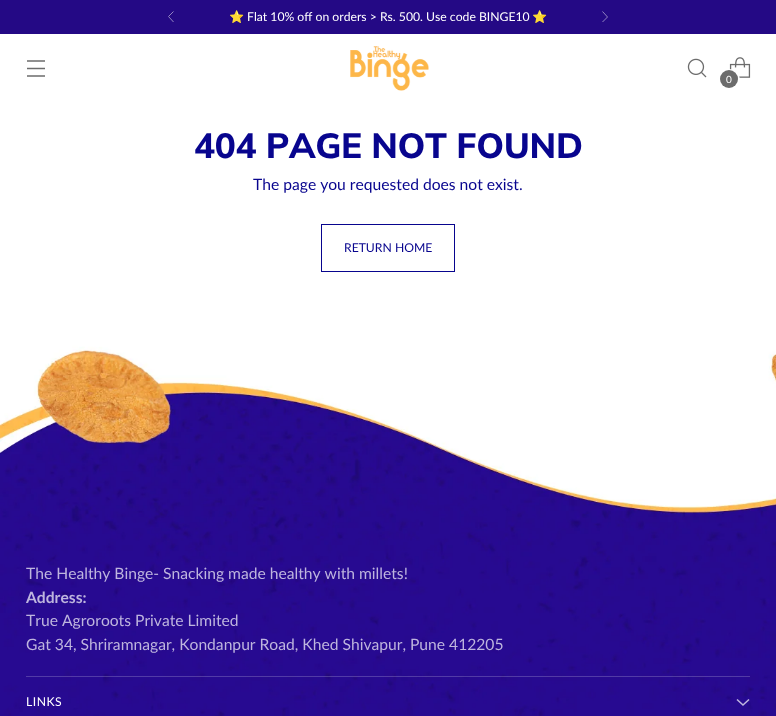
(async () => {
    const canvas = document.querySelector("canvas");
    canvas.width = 776;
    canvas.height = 716;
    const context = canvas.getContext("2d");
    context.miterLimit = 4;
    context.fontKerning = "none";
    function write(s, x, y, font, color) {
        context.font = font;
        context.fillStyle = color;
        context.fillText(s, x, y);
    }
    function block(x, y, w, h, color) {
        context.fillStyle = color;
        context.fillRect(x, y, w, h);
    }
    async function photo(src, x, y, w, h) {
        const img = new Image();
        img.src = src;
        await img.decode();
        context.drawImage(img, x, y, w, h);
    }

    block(0, 0, 776, 716, "rgb(255, 255, 255)");
    block(0, 0, 776, 34, "rgb(36, 9, 133)");
    write("⭐", 229, 21, "12.2px Noto Color Emoji", "rgb(255, 255, 255)");
    write("Flat 10% off on orders > Rs. 500. Use code BINGE10", 247, 21, "12.2px Lato", "rgb(255, 255, 255)");
    write("⭐", 532, 21, "12.2px Noto Color Emoji", "rgb(255, 255, 255)");
    context.beginPath();
    context.moveTo(173.5, 11.5);
    context.lineTo(168.5, 16.5);
    context.lineTo(173.5, 22);
    context.strokeStyle = "rgb(146, 132, 194)";
    context.stroke();
    context.beginPath();
    context.moveTo(602.5, 22);
    context.lineTo(607.5, 17);
    context.lineTo(602.5, 11.5);
    context.stroke();
    context.beginPath();
    context.moveTo(27, 68.5);
    context.lineTo(45, 68.5);
    context.moveTo(27, 61);
    context.lineTo(45, 61);
    context.moveTo(27, 76);
    context.lineTo(45, 76);
    context.strokeStyle = "rgb(108, 108, 108)";
    context.lineWidth = 1.3;
    context.stroke();
    await photo("media/1.png", 350, 46, 79, 45);
    await photo("media/2.png", 687, 58, 20, 20);
    await photo("media/3.png", 729, 57, 22, 21);
    context.beginPath();
    context.arc(729.5, 79.5, 9.5, 0, Math.PI * 2);
    context.strokeStyle = "rgb(255, 255, 255)";
    context.lineWidth = 2;
    context.stroke();
    context.fillStyle = "rgb(108, 108, 108)";
    context.beginPath();
    context.arc(729, 79, 9, 0, Math.PI * 2);
    context.fill();
    write("0", 726, 83, "10px Lato", "rgb(255, 255, 255)");
    context.letterSpacing = "-0.3px";
    write("404 PAGE NOT FOUND", 194, 158, "800 35px Muli", "rgb(8, 5, 142)");
    context.letterSpacing = "0px";
    write("The page you requested does not exist.", 253, 190, "15.65px Lato", "rgb(8, 5, 142)");
    context.strokeStyle = "rgb(8, 5, 142)";
    context.lineWidth = 1;
    context.strokeRect(321.5, 224.5, 133, 47);
    write("RETURN HOME", 344, 252, "12.2px Lato", "rgb(8, 5, 142)");
    await photo("media/4.png", 0, 296, 776, 420);
    block(26, 676, 724, 1, "rgba(255, 255, 255, 0.2)");
    write("The Healthy Binge- Snacking made healthy with millets!", 26, 579, "15.65px Lato", "rgb(190, 181, 222)");
    write("Address:", 26, 603, "bold 15.65px Lato", "rgb(190, 181, 222)");
    write("True Agroroots Private Limited", 26, 626, "15.65px Lato", "rgb(190, 181, 222)");
    write("Gat 34, Shriramnagar, Kondanpur Road, Khed Shivapur, Pune 412205", 26, 650, "15.65px Lato", "rgb(190, 181, 222)");
    context.letterSpacing = "0.5px";
    write("LINKS", 26, 706, "12.2px Lato", "rgb(255, 255, 255)");
    context.beginPath();
    context.moveTo(737, 699.5);
    context.lineTo(743, 705);
    context.lineTo(749, 699.5);
    context.strokeStyle = "rgb(190, 181, 222)";
    context.lineWidth = 1.6;
    context.stroke();
})();
